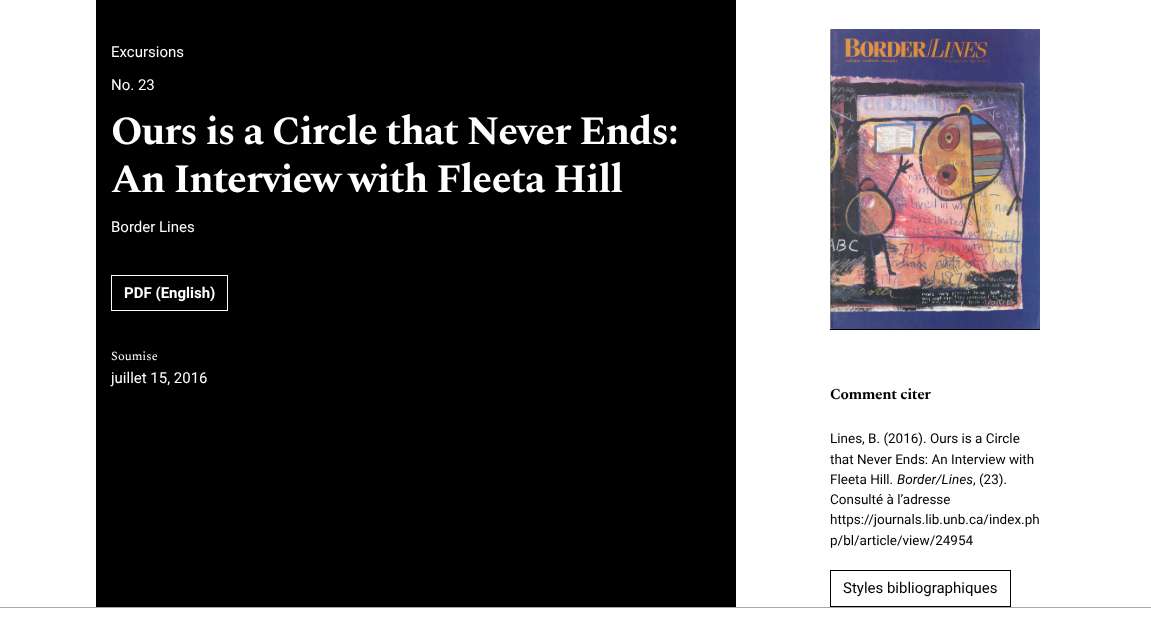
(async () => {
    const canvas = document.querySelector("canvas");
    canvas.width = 1151;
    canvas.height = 642;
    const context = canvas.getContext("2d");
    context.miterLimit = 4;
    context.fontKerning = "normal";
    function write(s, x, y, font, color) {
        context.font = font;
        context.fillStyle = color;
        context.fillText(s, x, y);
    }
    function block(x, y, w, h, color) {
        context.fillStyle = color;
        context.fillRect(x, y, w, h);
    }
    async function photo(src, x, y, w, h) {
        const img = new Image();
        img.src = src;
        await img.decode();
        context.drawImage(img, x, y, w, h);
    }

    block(0, 0, 1151, 642, "rgb(255, 255, 255)");
    block(96, 0, 640, 607, "rgb(0, 0, 0)");
    write("Excursions", 111, 57, "15px Roboto", "rgb(255, 255, 255)");
    write("No. 23", 111, 90, "15px Roboto", "rgb(255, 255, 255)");
    context.letterSpacing = "-1px";
    write("Ours is a Circle that Never Ends:", 111, 144, "bold 40px Spectral", "rgb(255, 255, 255)");
    write("An Interview with Fleeta Hill", 111, 192, "bold 40px Spectral", "rgb(255, 255, 255)");
    context.letterSpacing = "0px";
    write("Border Lines", 111, 232, "15px Roboto", "rgb(255, 255, 255)");
    context.strokeStyle = "rgb(255, 255, 255)";
    context.strokeRect(111.5, 275.5, 116, 35);
    write("PDF (English)", 124, 298, "bold 15px Roboto", "rgb(255, 255, 255)");
    write("Soumise", 111, 360, "12.5px Spectral", "rgb(255, 255, 255)");
    write("juillet 15, 2016", 111, 383, "15px Roboto", "rgb(255, 255, 255)");
    await photo("media/1.png", 830, 29, 210, 300);
    block(830, 329, 210, 1, "rgb(0, 0, 0)");
    context.letterSpacing = "-0.4px";
    write("Comment citer", 830, 399, "bold 15.25px Spectral", "rgb(0, 0, 0)");
    context.letterSpacing = "0px";
    write("Lines, B. (2016). Ours is a Circle", 830, 443, "13.5px Roboto", "rgb(0, 0, 0)");
    write("that Never Ends: An Interview with", 830, 464, "13.5px Roboto", "rgb(0, 0, 0)");
    write("Fleeta Hill.", 830, 484, "13.5px Roboto", "rgb(0, 0, 0)");
    write("Border/Lines", 897, 484, "italic 13.5px Roboto", "rgb(0, 0, 0)");
    write(", (23).", 973, 484, "13.5px Roboto", "rgb(0, 0, 0)");
    write("Consulté à l’adresse", 830, 504, "13.5px Roboto", "rgb(0, 0, 0)");
    write("https://journals.lib.unb.ca/index.ph", 830, 524, "13.5px Roboto", "rgb(0, 0, 0)");
    write("p/bl/article/view/24954", 830, 545, "13.5px Roboto", "rgb(0, 0, 0)");
    context.strokeStyle = "rgb(0, 0, 0)";
    context.strokeRect(830.5, 570.5, 180, 36);
    write("Styles bibliographiques", 843, 593, "15px Roboto", "rgb(0, 0, 0)");
    block(0, 607, 1151, 1, "rgb(169, 169, 169)");
})();
